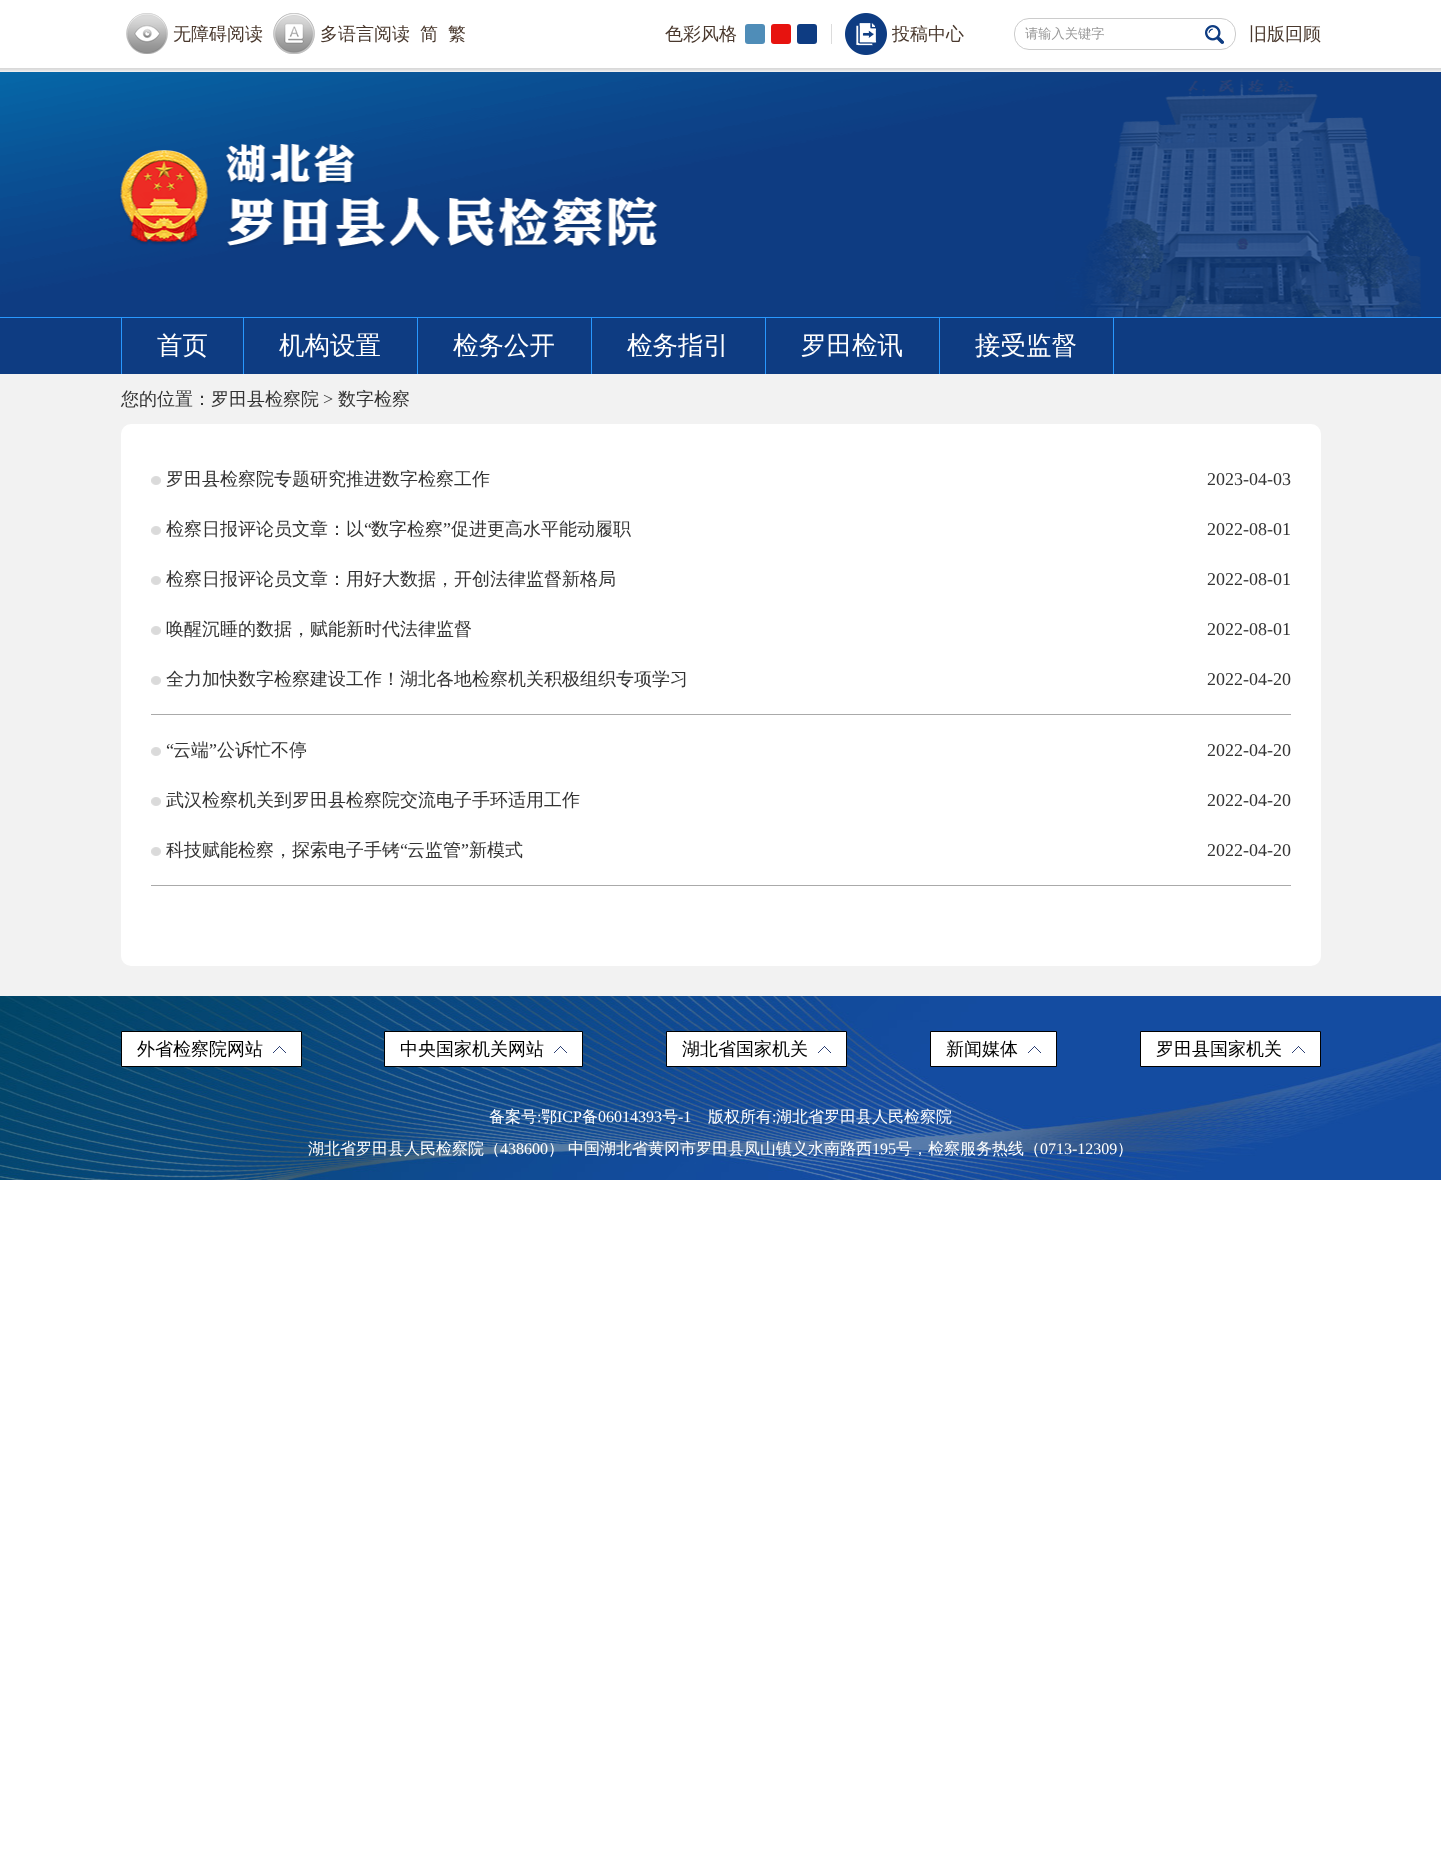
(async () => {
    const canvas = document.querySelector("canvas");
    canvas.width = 1441;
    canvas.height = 1857;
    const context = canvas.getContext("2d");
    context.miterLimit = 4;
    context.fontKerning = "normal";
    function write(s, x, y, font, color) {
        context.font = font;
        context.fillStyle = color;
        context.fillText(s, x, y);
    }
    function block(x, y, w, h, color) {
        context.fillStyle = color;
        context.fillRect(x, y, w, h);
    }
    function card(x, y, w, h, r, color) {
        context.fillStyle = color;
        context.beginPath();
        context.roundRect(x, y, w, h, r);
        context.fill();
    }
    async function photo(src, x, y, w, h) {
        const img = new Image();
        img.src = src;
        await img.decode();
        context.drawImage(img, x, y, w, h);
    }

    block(0, 0, 1441, 1857, "rgb(255, 255, 255)");
    await photo("media/1.png", 0, 68, 1441, 4);
    await photo("media/2.png", 126, 13, 42, 41);
    write("无障碍阅读", 173, 40, "500 18px WenQuanYi Zen Hei", "rgb(73, 56, 45)");
    await photo("media/3.png", 273, 13, 42, 41);
    write("多语言阅读", 320, 40, "500 18px WenQuanYi Zen Hei", "rgb(73, 56, 45)");
    write("简", 420, 40, "500 18px WenQuanYi Zen Hei", "rgb(73, 56, 45)");
    write("繁", 448, 40, "500 18px WenQuanYi Zen Hei", "rgb(73, 56, 45)");
    write("色彩风格", 665, 40, "500 18px WenQuanYi Zen Hei", "rgb(73, 56, 45)");
    card(745, 24, 20, 20, 3, "rgb(79, 141, 184)");
    card(771, 24, 20, 20, 3, "rgb(231, 19, 15)");
    card(797, 24, 20, 20, 3, "rgb(14, 60, 130)");
    block(831, 24, 1, 20, "rgb(220, 220, 220)");
    await photo("media/4.png", 845, 13, 42, 42);
    write("投稿中心", 892, 40, "500 18px WenQuanYi Zen Hei", "rgb(73, 56, 45)");
    context.beginPath();
    context.roundRect(1014.5, 18.5, 221, 31, 14.5);
    context.strokeStyle = "rgb(204, 204, 204)";
    context.stroke();
    write("请输入关键字", 1025, 38, "500 13.25px WenQuanYi Zen Hei", "rgb(153, 153, 153)");
    await photo("media/5.png", 1205, 25, 19, 19);
    write("旧版回顾", 1249, 40, "500 18px WenQuanYi Zen Hei", "rgb(73, 56, 45)");
    await photo("media/6.png", 0, 72, 1441, 245);
    block(0, 318, 1441, 56, "rgb(14, 60, 130)");
    block(0, 317, 1441, 1, "rgb(40, 152, 255)");
    block(121, 318, 1, 56, "rgb(40, 152, 255)");
    write("首页", 157, 354, "500 25.5px WenQuanYi Zen Hei", "rgb(255, 255, 255)");
    block(243, 318, 1, 56, "rgb(40, 152, 255)");
    write("机构设置", 279, 354, "500 25.5px WenQuanYi Zen Hei", "rgb(255, 255, 255)");
    block(417, 318, 1, 56, "rgb(40, 152, 255)");
    write("检务公开", 453, 354, "500 25.5px WenQuanYi Zen Hei", "rgb(255, 255, 255)");
    block(591, 318, 1, 56, "rgb(40, 152, 255)");
    write("检务指引", 627, 354, "500 25.5px WenQuanYi Zen Hei", "rgb(255, 255, 255)");
    block(765, 318, 1, 56, "rgb(40, 152, 255)");
    write("罗田检讯", 801, 354, "500 25.5px WenQuanYi Zen Hei", "rgb(255, 255, 255)");
    block(1113, 318, 1, 56, "rgb(40, 152, 255)");
    block(939, 318, 1, 56, "rgb(40, 152, 255)");
    write("接受监督", 975, 354, "500 25.5px WenQuanYi Zen Hei", "rgb(255, 255, 255)");
    block(0, 374, 1441, 622, "rgb(242, 242, 242)");
    write("您的位置：罗田县检察院", 121, 405, "500 18px WenQuanYi Zen Hei", "rgb(51, 51, 51)");
    write(">", 323, 405, "18px Liberation Serif", "rgb(51, 51, 51)");
    write("数字检察", 338, 405, "500 18px WenQuanYi Zen Hei", "rgb(51, 51, 51)");
    card(121, 424, 1200, 542, 10, "rgb(255, 255, 255)");
    block(151, 714, 1140, 1, "rgb(170, 170, 170)");
    await photo("media/7.png", 151, 476, 10, 9);
    write("罗田县检察院专题研究推进数字检察工作", 166, 485, "500 18px WenQuanYi Zen Hei", "rgb(51, 51, 51)");
    write("2023-04-03", 1207, 485, "18px Liberation Serif", "rgb(51, 51, 51)");
    await photo("media/7.png", 151, 526, 10, 9);
    write("检察日报评论员文章：以", 166, 535, "500 18px WenQuanYi Zen Hei", "rgb(51, 51, 51)");
    write("“", 364, 535, "18px Liberation Serif", "rgb(51, 51, 51)");
    write("数字检察", 371, 535, "500 18px WenQuanYi Zen Hei", "rgb(51, 51, 51)");
    write("”", 443, 535, "18px Liberation Serif", "rgb(51, 51, 51)");
    write("促进更高水平能动履职", 451, 535, "500 18px WenQuanYi Zen Hei", "rgb(51, 51, 51)");
    write("2022-08-01", 1207, 535, "18px Liberation Serif", "rgb(51, 51, 51)");
    await photo("media/7.png", 151, 576, 10, 9);
    write("检察日报评论员文章：用好大数据，开创法律监督新格局", 166, 585, "500 18px WenQuanYi Zen Hei", "rgb(51, 51, 51)");
    write("2022-08-01", 1207, 585, "18px Liberation Serif", "rgb(51, 51, 51)");
    await photo("media/7.png", 151, 626, 10, 9);
    write("唤醒沉睡的数据，赋能新时代法律监督", 166, 635, "500 18px WenQuanYi Zen Hei", "rgb(51, 51, 51)");
    write("2022-08-01", 1207, 635, "18px Liberation Serif", "rgb(51, 51, 51)");
    await photo("media/7.png", 151, 676, 10, 9);
    write("全力加快数字检察建设工作！湖北各地检察机关积极组织专项学习", 166, 685, "500 18px WenQuanYi Zen Hei", "rgb(51, 51, 51)");
    write("2022-04-20", 1207, 685, "18px Liberation Serif", "rgb(51, 51, 51)");
    block(151, 885, 1140, 1, "rgb(170, 170, 170)");
    await photo("media/7.png", 151, 747, 10, 9);
    write("“", 166, 756, "18px Liberation Serif", "rgb(51, 51, 51)");
    write("云端", 173, 756, "500 18px WenQuanYi Zen Hei", "rgb(51, 51, 51)");
    write("”", 209, 756, "18px Liberation Serif", "rgb(51, 51, 51)");
    write("公诉忙不停", 217, 756, "500 18px WenQuanYi Zen Hei", "rgb(51, 51, 51)");
    write("2022-04-20", 1207, 756, "18px Liberation Serif", "rgb(51, 51, 51)");
    await photo("media/7.png", 151, 797, 10, 9);
    write("武汉检察机关到罗田县检察院交流电子手环适用工作", 166, 806, "500 18px WenQuanYi Zen Hei", "rgb(51, 51, 51)");
    write("2022-04-20", 1207, 806, "18px Liberation Serif", "rgb(51, 51, 51)");
    await photo("media/7.png", 151, 847, 10, 9);
    write("科技赋能检察，探索电子手铐", 166, 856, "500 18px WenQuanYi Zen Hei", "rgb(51, 51, 51)");
    write("“", 400, 856, "18px Liberation Serif", "rgb(51, 51, 51)");
    write("云监管", 407, 856, "500 18px WenQuanYi Zen Hei", "rgb(51, 51, 51)");
    write("”", 461, 856, "18px Liberation Serif", "rgb(51, 51, 51)");
    write("新模式", 469, 856, "500 18px WenQuanYi Zen Hei", "rgb(51, 51, 51)");
    write("2022-04-20", 1207, 856, "18px Liberation Serif", "rgb(51, 51, 51)");
    await photo("media/8.png", 0, 996, 1441, 184);
    context.fillStyle = "rgb(255, 255, 255)";
    context.beginPath();
    context.rect(121.5, 1031.5, 180, 35);
    context.fill();
    context.strokeStyle = "rgb(0, 0, 0)";
    context.stroke();
    write("外省检察院网站", 137, 1055, "500 18px WenQuanYi Zen Hei", "rgb(0, 0, 0)");
    await photo("media/9.png", 273, 1046, 13, 7);
    context.fillStyle = "rgb(255, 255, 255)";
    context.beginPath();
    context.rect(384.5, 1031.5, 198, 35);
    context.fill();
    context.stroke();
    write("中央国家机关网站", 400, 1055, "500 18px WenQuanYi Zen Hei", "rgb(0, 0, 0)");
    await photo("media/9.png", 554, 1046, 13, 7);
    context.fillStyle = "rgb(255, 255, 255)";
    context.beginPath();
    context.rect(666.5, 1031.5, 180, 35);
    context.fill();
    context.stroke();
    write("湖北省国家机关", 682, 1055, "500 18px WenQuanYi Zen Hei", "rgb(0, 0, 0)");
    await photo("media/9.png", 818, 1046, 13, 7);
    context.fillStyle = "rgb(255, 255, 255)";
    context.beginPath();
    context.rect(930.5, 1031.5, 126, 35);
    context.fill();
    context.stroke();
    write("新闻媒体", 946, 1055, "500 18px WenQuanYi Zen Hei", "rgb(0, 0, 0)");
    await photo("media/9.png", 1028, 1046, 13, 7);
    context.fillStyle = "rgb(255, 255, 255)";
    context.beginPath();
    context.rect(1140.5, 1031.5, 180, 35);
    context.fill();
    context.stroke();
    write("罗田县国家机关", 1156, 1055, "500 18px WenQuanYi Zen Hei", "rgb(0, 0, 0)");
    await photo("media/9.png", 1292, 1046, 13, 7);
    write("备案号", 489, 1122, "500 16px WenQuanYi Zen Hei", "rgb(255, 255, 255)");
    write(":", 537, 1122, "16px Liberation Serif", "rgb(255, 255, 255)");
    write("鄂", 541, 1122, "500 16px WenQuanYi Zen Hei", "rgb(255, 255, 255)");
    write("ICP", 557, 1122, "16px Liberation Serif", "rgb(255, 255, 255)");
    write("备", 582, 1122, "500 16px WenQuanYi Zen Hei", "rgb(255, 255, 255)");
    write("06014393", 598, 1122, "16px Liberation Serif", "rgb(255, 255, 255)");
    write("号", 662, 1122, "500 16px WenQuanYi Zen Hei", "rgb(255, 255, 255)");
    write("-1", 678, 1122, "16px Liberation Serif", "rgb(255, 255, 255)");
    write("版权所有", 708, 1122, "500 16px WenQuanYi Zen Hei", "rgb(255, 255, 255)");
    write(":", 772, 1122, "16px Liberation Serif", "rgb(255, 255, 255)");
    write("湖北省罗田县人民检察院", 776, 1122, "500 16px WenQuanYi Zen Hei", "rgb(255, 255, 255)");
    write("湖北省罗田县人民检察院（", 308, 1154, "500 16px WenQuanYi Zen Hei", "rgb(255, 255, 255)");
    write("438600", 500, 1154, "16px Liberation Serif", "rgb(255, 255, 255)");
    write("）", 548, 1154, "500 16px WenQuanYi Zen Hei", "rgb(255, 255, 255)");
    write("中国湖北省黄冈市罗田县凤山镇义水南路西", 568, 1154, "500 16px WenQuanYi Zen Hei", "rgb(255, 255, 255)");
    write("195", 872, 1154, "16px Liberation Serif", "rgb(255, 255, 255)");
    write("号，检察服务热线（", 896, 1154, "500 16px WenQuanYi Zen Hei", "rgb(255, 255, 255)");
    write("0713-12309", 1040, 1154, "16px Liberation Serif", "rgb(255, 255, 255)");
    write("）", 1117, 1154, "500 16px WenQuanYi Zen Hei", "rgb(255, 255, 255)");
})();
